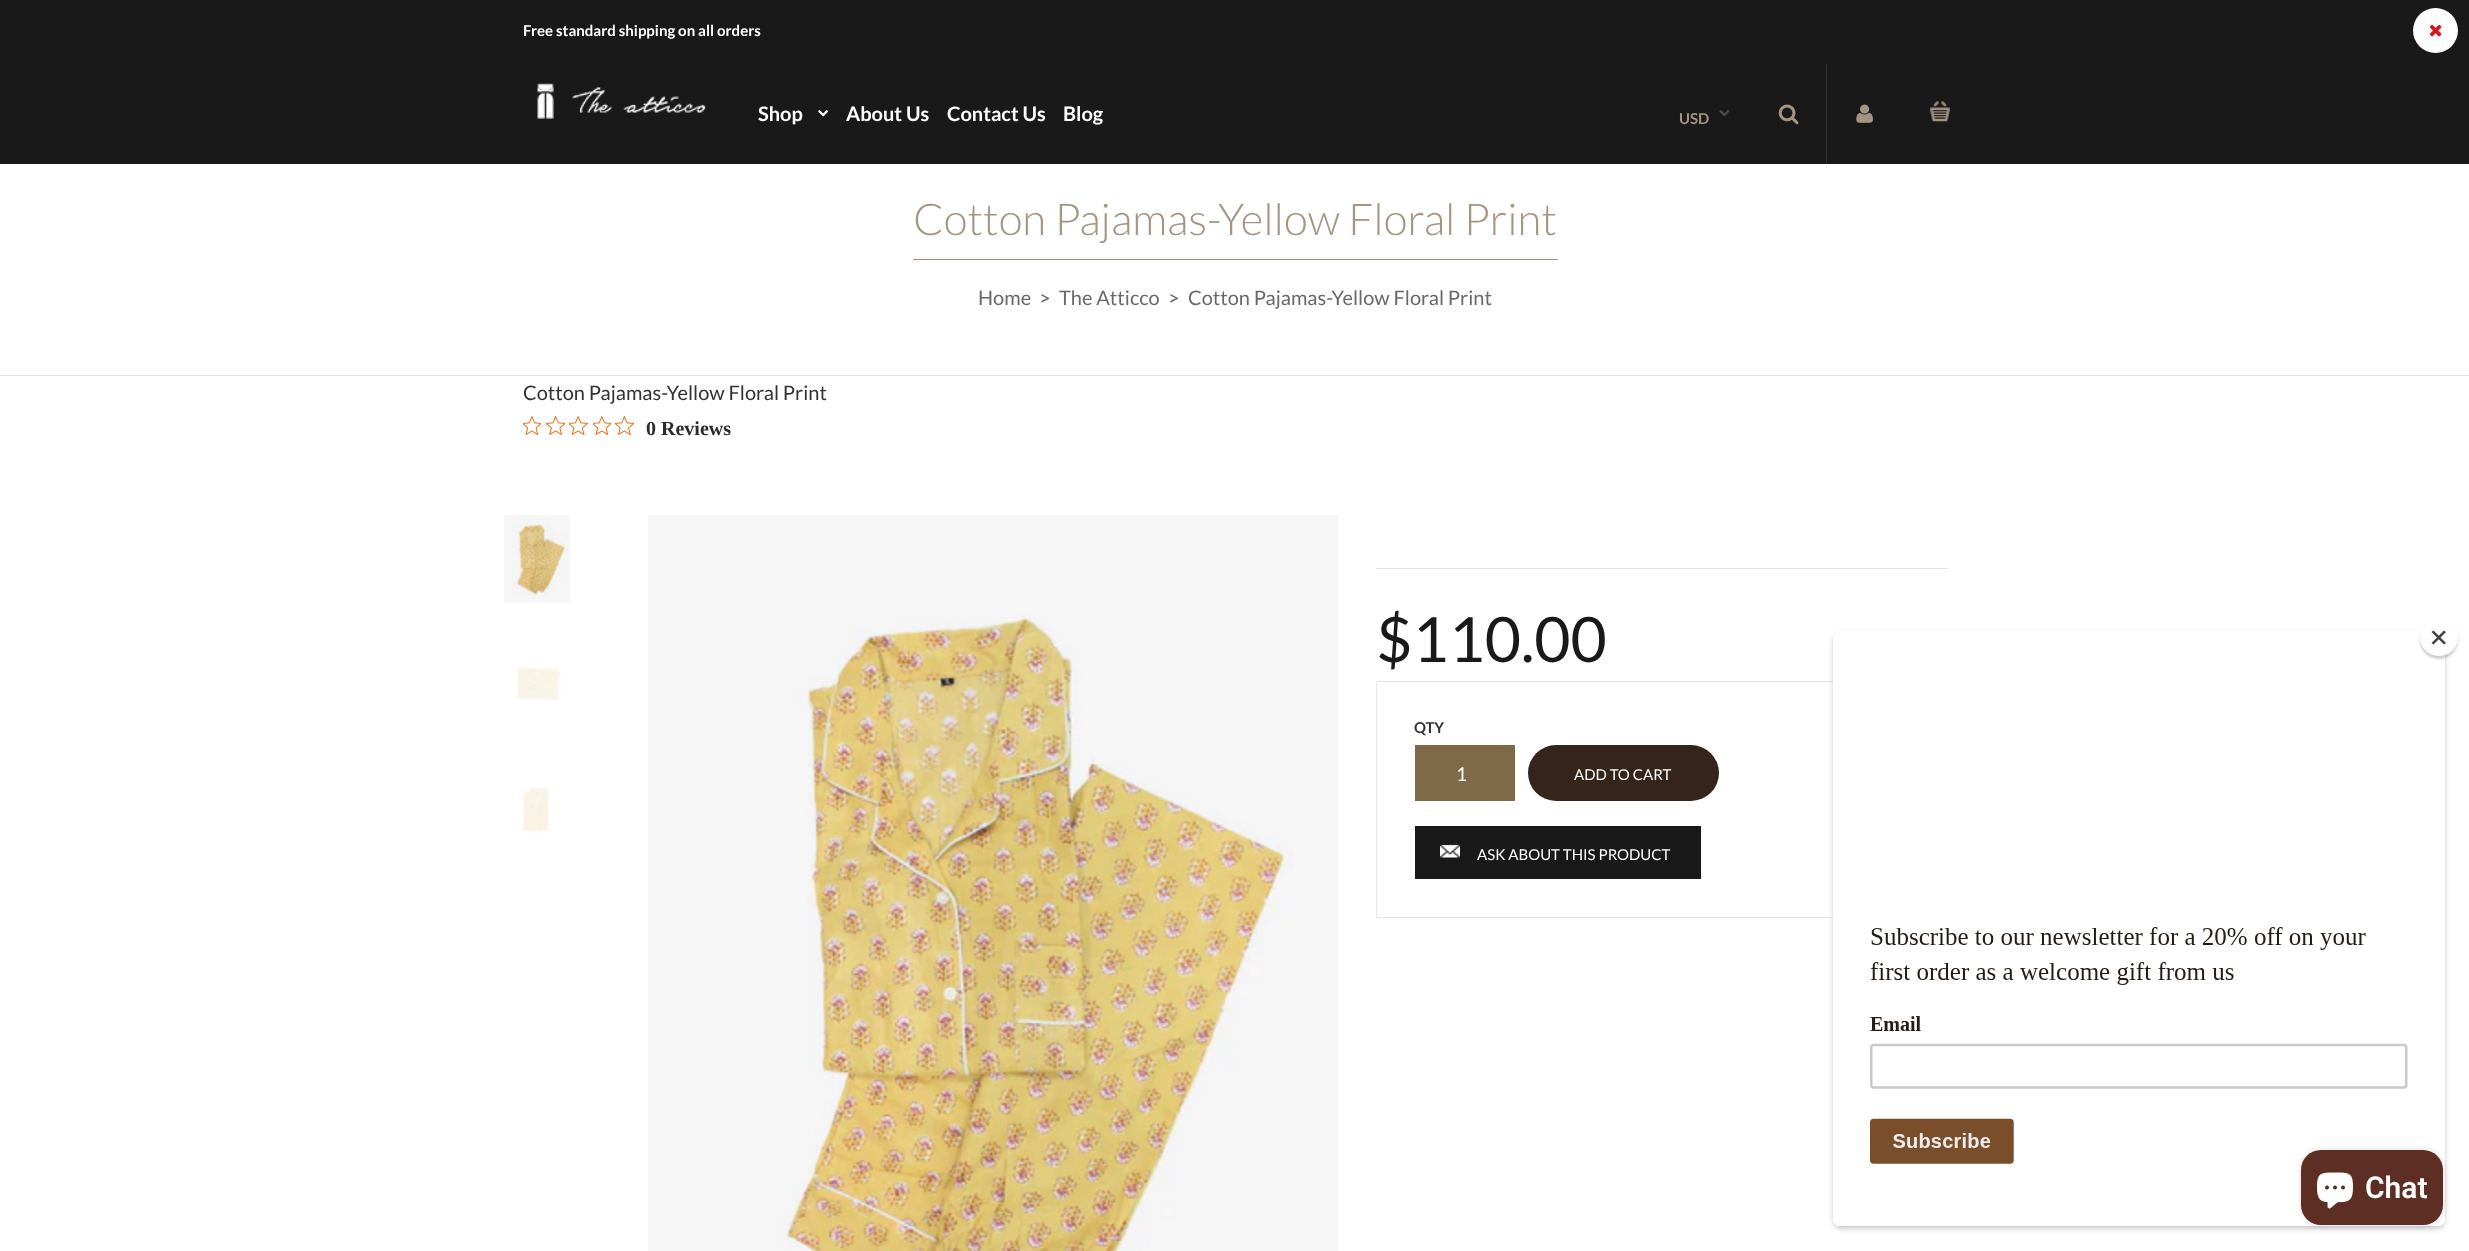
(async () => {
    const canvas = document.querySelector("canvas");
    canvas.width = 2469;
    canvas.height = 1251;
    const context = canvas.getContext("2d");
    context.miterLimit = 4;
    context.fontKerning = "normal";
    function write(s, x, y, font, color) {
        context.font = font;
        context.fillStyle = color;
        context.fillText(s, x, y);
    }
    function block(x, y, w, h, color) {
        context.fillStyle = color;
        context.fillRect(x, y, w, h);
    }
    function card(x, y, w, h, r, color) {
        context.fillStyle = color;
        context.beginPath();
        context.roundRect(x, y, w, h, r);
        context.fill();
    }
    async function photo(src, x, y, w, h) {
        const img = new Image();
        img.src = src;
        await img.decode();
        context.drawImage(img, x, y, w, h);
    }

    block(0, 0, 2469, 1251, "rgb(255, 255, 255)");
    block(0, 0, 2469, 164, "rgb(25, 25, 25)");
    write("Free standard shipping on all orders", 523, 36, "bold 15px Lato", "rgb(255, 255, 255)");
    context.beginPath();
    context.arc(2435.5, 30.5, 22.5, 0, Math.PI * 2);
    context.fill();
    await photo("media/1.png", 2429, 24, 13, 13);
    await photo("media/2.png", 537, 83, 169, 36);
    write("Shop", 758, 121, "bold 20px Lato", "rgb(255, 255, 255)");
    await photo("media/3.png", 818, 110, 11, 7);
    write("About Us", 846, 121, "bold 20px Lato", "rgb(255, 255, 255)");
    write("Contact Us", 947, 121, "bold 20px Lato", "rgb(255, 255, 255)");
    write("Blog", 1063, 121, "bold 20px Lato", "rgb(255, 255, 255)");
    write("USD", 1679, 124, "bold 15px Lato", "rgb(164, 149, 131)");
    await photo("media/4.png", 1719, 110, 11, 7);
    await photo("media/5.png", 1778, 104, 21, 21);
    block(1826, 64, 1, 100, "rgb(48, 48, 48)");
    await photo("media/6.png", 1856, 104, 17, 19);
    await photo("media/7.png", 1930, 101, 20, 21);
    block(0, 375, 2469, 1, "rgb(229, 229, 229)");
    block(913, 259, 645, 1, "rgb(164, 149, 131)");
    write("Cotton Pajamas-Yellow Floral Print", 913, 235, "300 43.75px Lato", "rgb(164, 149, 131)");
    write("Home", 978, 305, "20px Lato", "rgb(105, 105, 105)");
    write(">", 1039, 305, "20px Lato", "rgb(105, 105, 105)");
    write("The Atticco", 1059, 305, "20px Lato", "rgb(105, 105, 105)");
    write(">", 1168, 305, "20px Lato", "rgb(105, 105, 105)");
    write("Cotton Pajamas-Yellow Floral Print", 1188, 305, "20px Lato", "rgb(105, 105, 105)");
    write("Cotton Pajamas-Yellow Floral Print", 523, 400, "20px Lato", "rgb(51, 51, 51)");
    await photo("media/8.png", 523, 416, 18, 19);
    await photo("media/9.png", 546, 416, 19, 19);
    await photo("media/10.png", 569, 416, 19, 19);
    await photo("media/8.png", 593, 416, 18, 19);
    await photo("media/11.png", 615, 416, 19, 19);
    write("0 Reviews", 646, 435, "bold 20px Liberation Serif", "rgb(44, 44, 44)");
    await photo("media/12.png", 504, 515, 66, 88);
    await photo("media/13.png", 517, 667, 44, 34);
    await photo("media/14.png", 522, 787, 28, 46);
    await photo("media/15.png", 648, 515, 691, 736);
    block(1376, 568, 572, 1, "rgb(229, 229, 229)");
    write("$110.00", 1376, 662, "62.5px Lato", "rgb(25, 25, 25)");
    context.strokeStyle = "rgb(229, 229, 229)";
    context.strokeRect(1376.5, 681.5, 571, 236);
    write("QTY", 1414, 733, "bold 15px Lato", "rgb(51, 51, 51)");
    block(1415, 745, 100, 56, "rgb(126, 106, 71)");
    write("1", 1456, 781, "19px Lato", "rgb(255, 255, 255)");
    card(1528, 745, 191, 56, 28, "rgb(53, 36, 26)");
    write("ADD TO CART", 1574, 780, "15px Lato", "rgb(255, 255, 255)");
    block(1415, 826, 286, 53, "rgb(25, 25, 25)");
    await photo("media/16.png", 1440, 844, 20, 14);
    write("ASK ABOUT THIS PRODUCT", 1477, 860, "15px Lato", "rgb(255, 255, 255)");
    context.fillStyle = "rgba(0, 0, 0, 0.2)";
    context.filter = "blur(2.5px)";
    context.beginPath();
    context.roundRect(1833, 634, 612, 595, 8);
    context.fill();
    context.filter = "none";
    card(1833, 631, 612, 595, 8, "rgb(255, 255, 255)");
    context.fillStyle = "rgba(0, 0, 0, 0.2)";
    context.filter = "blur(1px)";
    context.beginPath();
    context.roundRect(2420, 621, 38, 38, 19);
    context.fill();
    context.filter = "none";
    card(2420, 619, 38, 37, 18.5, "rgb(255, 255, 255)");
    context.fillStyle = "rgb(65, 65, 65)";
    context.beginPath();
    context.moveTo(2444, 630.5);
    context.lineTo(2446, 632);
    context.lineTo(2433.5, 644.5);
    context.lineTo(2431.5, 643);
    context.closePath();
    context.fill();
    context.beginPath();
    context.moveTo(2431.5, 632);
    context.lineTo(2433.5, 630.5);
    context.lineTo(2446, 643);
    context.lineTo(2444, 644.5);
    context.closePath();
    context.fill();
    await photo("media/17.png", 1833, 927, 612, 299);
    context.fillStyle = "rgba(0, 0, 0, 0.15)";
    context.filter = "blur(3px)";
    context.beginPath();
    context.roundRect(2301, 1150, 142, 75, 20);
    context.fill();
    context.filter = "none";
    card(2301, 1150, 142, 75, 20, "rgb(92, 46, 36)");
    await photo("media/18.png", 2317, 1172, 36, 37);
    write("Chat", 2365, 1198, "600 30px Roboto", "rgb(255, 255, 255)");
})();
